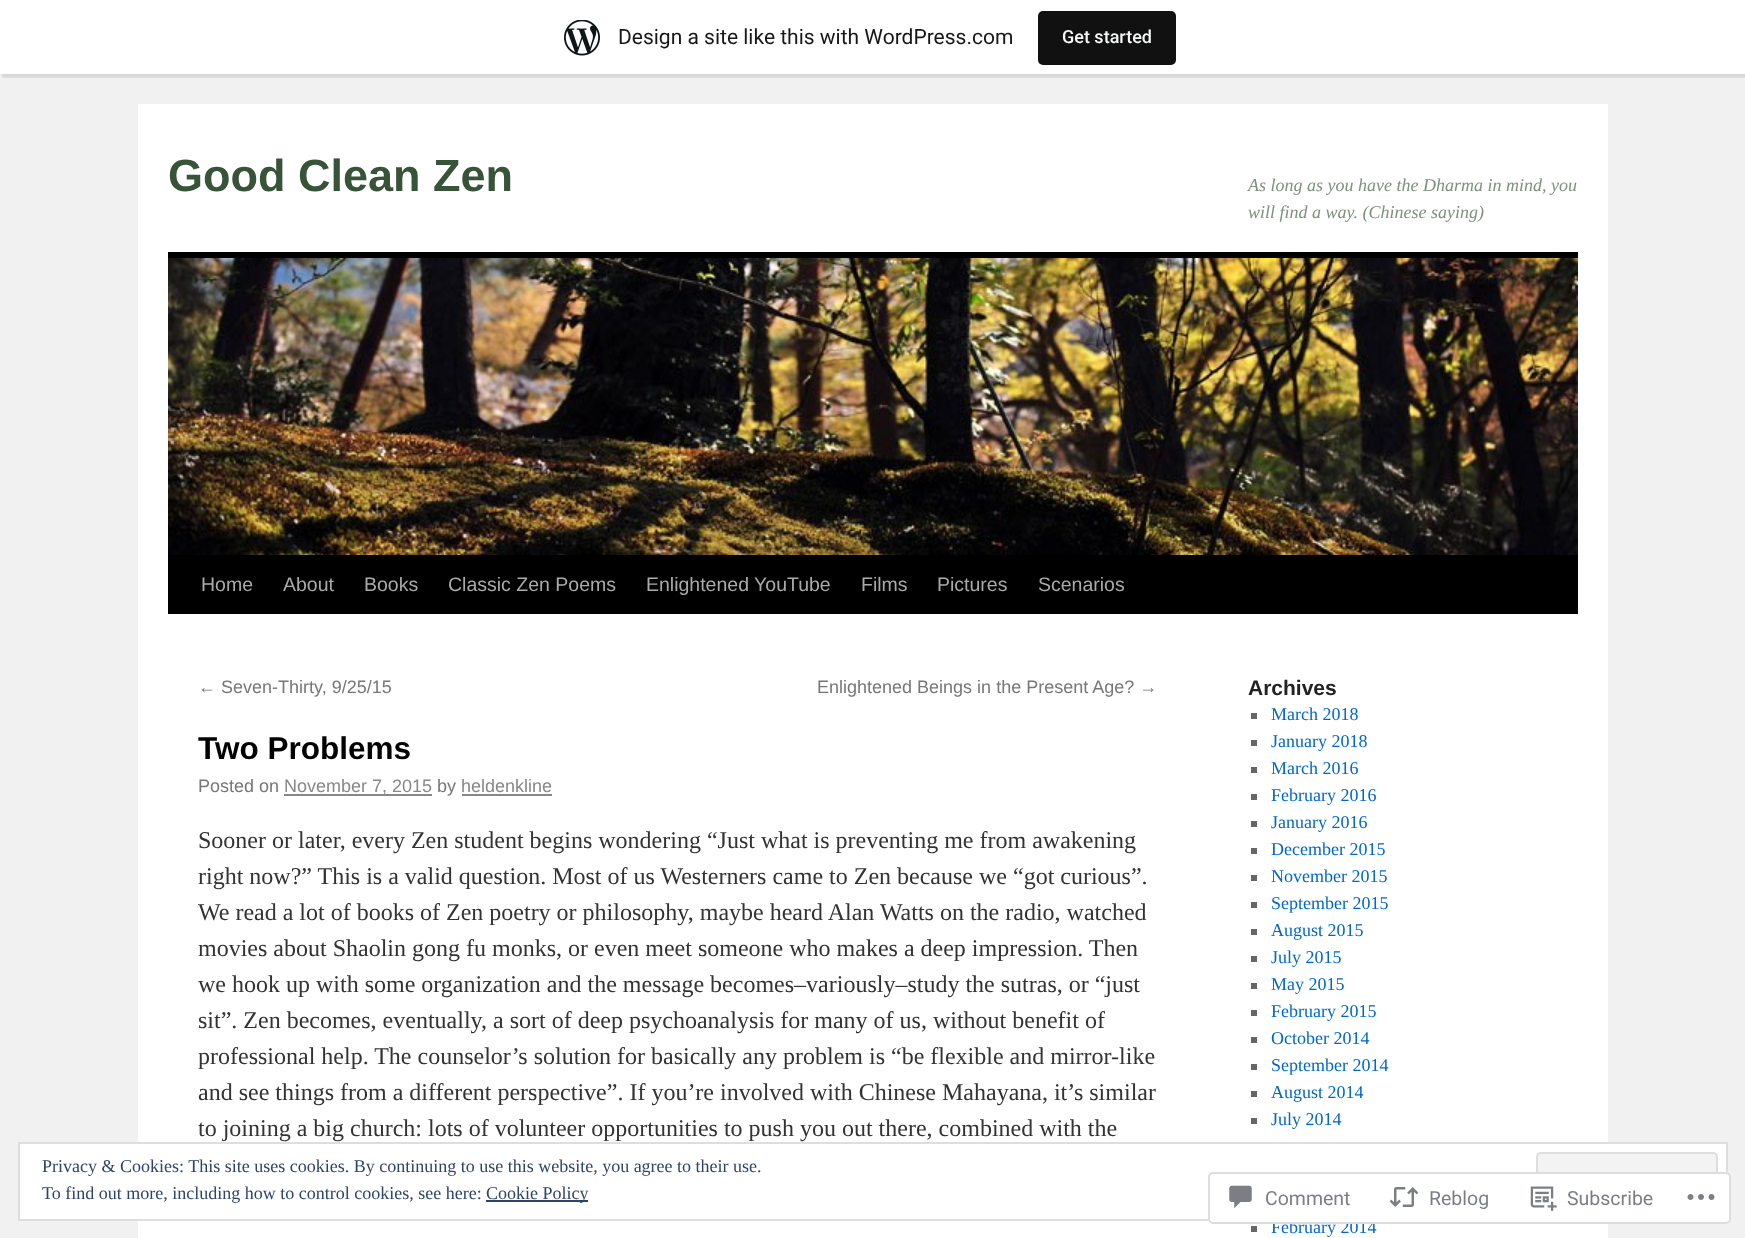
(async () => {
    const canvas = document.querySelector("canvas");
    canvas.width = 1745;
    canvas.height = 1238;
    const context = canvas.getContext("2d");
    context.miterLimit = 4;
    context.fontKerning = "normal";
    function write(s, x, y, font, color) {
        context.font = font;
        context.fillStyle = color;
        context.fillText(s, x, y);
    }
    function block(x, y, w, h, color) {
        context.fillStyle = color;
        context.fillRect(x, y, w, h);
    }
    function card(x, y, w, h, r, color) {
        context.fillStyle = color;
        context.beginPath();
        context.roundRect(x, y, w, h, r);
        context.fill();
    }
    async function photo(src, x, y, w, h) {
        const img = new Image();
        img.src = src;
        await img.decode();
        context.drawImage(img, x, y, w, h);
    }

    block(0, 0, 1745, 1238, "rgb(241, 241, 241)");
    context.fillStyle = "rgba(0, 0, 0, 0.05)";
    context.filter = "blur(1.5px)";
    context.beginPath();
    context.rect(0, 2, 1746, 73);
    context.fill();
    context.filter = "none";
    context.fillStyle = "rgba(0, 0, 0, 0.08)";
    context.beginPath();
    context.moveTo(2, 74);
    context.lineTo(2, 78);
    context.lineTo(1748, 78);
    context.lineTo(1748, 5);
    context.lineTo(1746, 5);
    context.lineTo(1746, 74);
    context.closePath();
    context.fill();
    block(0, 0, 1745, 74, "rgb(255, 255, 255)");
    await photo("media/1.png", 564, 20, 36, 36);
    write("Design a site like this with WordPress.com", 618, 44, "21px Roboto", "rgb(23, 23, 23)");
    card(1038, 11, 138, 54, 5, "rgb(17, 17, 17)");
    write("Get started", 1062, 43, "500 18px Roboto", "rgb(246, 247, 247)");
    block(138, 104, 1470, 1134, "rgb(255, 255, 255)");
    write("Good Clean Zen", 168, 191, "bold 45px Liberation Sans", "rgb(56, 84, 56)");
    write("As long as you have the Dharma in mind, you", 1248, 191, "italic 18px Liberation Serif", "rgb(126, 144, 126)");
    write("will find a way. (Chinese saying)", 1248, 218, "italic 18px Liberation Serif", "rgb(126, 144, 126)");
    block(168, 252, 1410, 6, "rgb(0, 0, 0)");
    block(168, 555, 1410, 59, "rgb(0, 0, 0)");
    await photo("media/2.png", 168, 258, 1410, 297);
    write("Home", 201, 591, "19.5px Liberation Sans", "rgb(170, 170, 170)");
    write("About", 283, 591, "19.5px Liberation Sans", "rgb(170, 170, 170)");
    write("Books", 364, 591, "19.5px Liberation Sans", "rgb(170, 170, 170)");
    write("Classic Zen Poems", 448, 591, "19.5px Liberation Sans", "rgb(170, 170, 170)");
    write("Enlightened YouTube", 646, 591, "19.5px Liberation Sans", "rgb(170, 170, 170)");
    write("Films", 861, 591, "19.5px Liberation Sans", "rgb(170, 170, 170)");
    write("Pictures", 937, 591, "19.5px Liberation Sans", "rgb(170, 170, 170)");
    write("Scenarios", 1038, 591, "19.5px Liberation Sans", "rgb(170, 170, 170)");
    write("← Seven-Thirty, 9/25/15", 198, 693, "18px Liberation Sans", "rgb(119, 119, 119)");
    write("Enlightened Beings in the Present Age? →", 817, 693, "18px Liberation Sans", "rgb(119, 119, 119)");
    write("Two Problems", 198, 759, "bold 31.5px Liberation Sans", "rgb(0, 0, 0)");
    write("Posted on", 198, 792, "18px Liberation Sans", "rgb(119, 119, 119)");
    block(284, 794, 148, 2, "rgb(136, 136, 136)");
    write("November 7, 2015", 284, 792, "18px Liberation Sans", "rgb(136, 136, 136)");
    write("by", 437, 792, "18px Liberation Sans", "rgb(119, 119, 119)");
    write("heldenkline", 461, 792, "18px Liberation Sans", "rgb(136, 136, 136)");
    block(462, 794, 90, 2, "rgb(136, 136, 136)");
    write("Sooner or later, every Zen student begins wondering “Just what is preventing me from awakening", 198, 848, "24px Liberation Serif", "rgb(51, 51, 51)");
    write("right now?” This is a valid question. Most of us Westerners came to Zen because we “got curious”.", 198, 884, "24px Liberation Serif", "rgb(51, 51, 51)");
    write("We read a lot of books of Zen poetry or philosophy, maybe heard Alan Watts on the radio, watched", 198, 920, "24px Liberation Serif", "rgb(51, 51, 51)");
    write("movies about Shaolin gong fu monks, or even meet someone who makes a deep impression. Then", 198, 956, "24px Liberation Serif", "rgb(51, 51, 51)");
    write("we hook up with some organization and the message becomes–variously–study the sutras, or “just", 198, 992, "24px Liberation Serif", "rgb(51, 51, 51)");
    write("sit”. Zen becomes, eventually, a sort of deep psychoanalysis for many of us, without benefit of", 198, 1028, "24px Liberation Serif", "rgb(51, 51, 51)");
    write("professional help. The counselor’s solution for basically any problem is “be flexible and mirror-like", 198, 1064, "24px Liberation Serif", "rgb(51, 51, 51)");
    write("and see things from a different perspective”. If you’re involved with Chinese Mahayana, it’s similar", 198, 1100, "24px Liberation Serif", "rgb(51, 51, 51)");
    write("to joining a big church: lots of volunteer opportunities to push you out there, combined with the", 198, 1136, "24px Liberation Serif", "rgb(51, 51, 51)");
    write("Archives", 1248, 695, "bold 21px Liberation Sans", "rgb(34, 34, 34)");
    block(1251, 713, 6, 6, "rgb(102, 102, 102)");
    write("March 2018", 1271, 720, "18px Liberation Serif", "rgb(0, 102, 204)");
    block(1251, 740, 6, 6, "rgb(102, 102, 102)");
    write("January 2018", 1271, 747, "18px Liberation Serif", "rgb(0, 102, 204)");
    block(1251, 767, 6, 6, "rgb(102, 102, 102)");
    write("March 2016", 1271, 774, "18px Liberation Serif", "rgb(0, 102, 204)");
    block(1251, 794, 6, 6, "rgb(102, 102, 102)");
    write("February 2016", 1271, 801, "18px Liberation Serif", "rgb(0, 102, 204)");
    block(1251, 821, 6, 6, "rgb(102, 102, 102)");
    write("January 2016", 1271, 828, "18px Liberation Serif", "rgb(0, 102, 204)");
    block(1251, 848, 6, 6, "rgb(102, 102, 102)");
    write("December 2015", 1271, 855, "18px Liberation Serif", "rgb(0, 102, 204)");
    block(1251, 875, 6, 6, "rgb(102, 102, 102)");
    write("November 2015", 1271, 882, "18px Liberation Serif", "rgb(0, 102, 204)");
    block(1251, 902, 6, 6, "rgb(102, 102, 102)");
    write("September 2015", 1271, 909, "18px Liberation Serif", "rgb(0, 102, 204)");
    block(1251, 929, 6, 6, "rgb(102, 102, 102)");
    write("August 2015", 1271, 936, "18px Liberation Serif", "rgb(0, 102, 204)");
    block(1251, 956, 6, 6, "rgb(102, 102, 102)");
    write("July 2015", 1271, 963, "18px Liberation Serif", "rgb(0, 102, 204)");
    block(1251, 983, 6, 6, "rgb(102, 102, 102)");
    write("May 2015", 1271, 990, "18px Liberation Serif", "rgb(0, 102, 204)");
    block(1251, 1010, 6, 6, "rgb(102, 102, 102)");
    write("February 2015", 1271, 1017, "18px Liberation Serif", "rgb(0, 102, 204)");
    block(1251, 1037, 6, 6, "rgb(102, 102, 102)");
    write("October 2014", 1271, 1044, "18px Liberation Serif", "rgb(0, 102, 204)");
    block(1251, 1064, 6, 6, "rgb(102, 102, 102)");
    write("September 2014", 1271, 1071, "18px Liberation Serif", "rgb(0, 102, 204)");
    block(1251, 1091, 6, 6, "rgb(102, 102, 102)");
    write("August 2014", 1271, 1098, "18px Liberation Serif", "rgb(0, 102, 204)");
    block(1251, 1118, 6, 6, "rgb(102, 102, 102)");
    write("July 2014", 1271, 1125, "18px Liberation Serif", "rgb(0, 102, 204)");
    block(1251, 1226, 6, 6, "rgb(102, 102, 102)");
    write("February 2014", 1271, 1233, "18px Liberation Serif", "rgb(0, 102, 204)");
    context.fillStyle = "rgb(255, 255, 255)";
    context.beginPath();
    context.rect(19, 1143, 1708, 77);
    context.fill();
    context.strokeStyle = "rgb(222, 222, 222)";
    context.lineWidth = 2;
    context.stroke();
    write("Privacy & Cookies: This site uses cookies. By continuing to use this website, you agree to their use.", 42, 1172, "18px Liberation Serif", "rgb(46, 68, 103)");
    context.fillStyle = "rgb(243, 243, 243)";
    context.beginPath();
    context.roundRect(1537, 1153, 180, 57, 4);
    context.fill();
    context.stroke();
    write("To find out more, including how to control cookies, see here:", 42, 1199, "18px Liberation Serif", "rgb(46, 68, 103)");
    block(486, 1200, 102, 2, "rgb(46, 68, 103)");
    write("Cookie Policy", 486, 1199, "18px Liberation Serif", "rgb(46, 68, 103)");
    card(1208, 1172, 523, 52, 5, "rgba(255, 255, 255, 0.98)");
    context.beginPath();
    context.roundRect(1209, 1173, 521, 50, 4);
    context.strokeStyle = "rgba(220, 220, 222, 0.98)";
    context.stroke();
    await photo("media/3.png", 1229, 1185, 23, 24);
    write("Comment", 1265, 1205, "19.5px Roboto", "rgb(123, 127, 133)");
    await photo("media/4.png", 1389, 1187, 30, 20);
    write("Reblog", 1429, 1205, "19.5px Roboto", "rgb(123, 127, 133)");
    await photo("media/5.png", 1530, 1186, 27, 25);
    write("Subscribe", 1567, 1205, "19.5px Roboto", "rgb(123, 127, 133)");
    await photo("media/6.png", 1687, 1194, 28, 6);
})();
